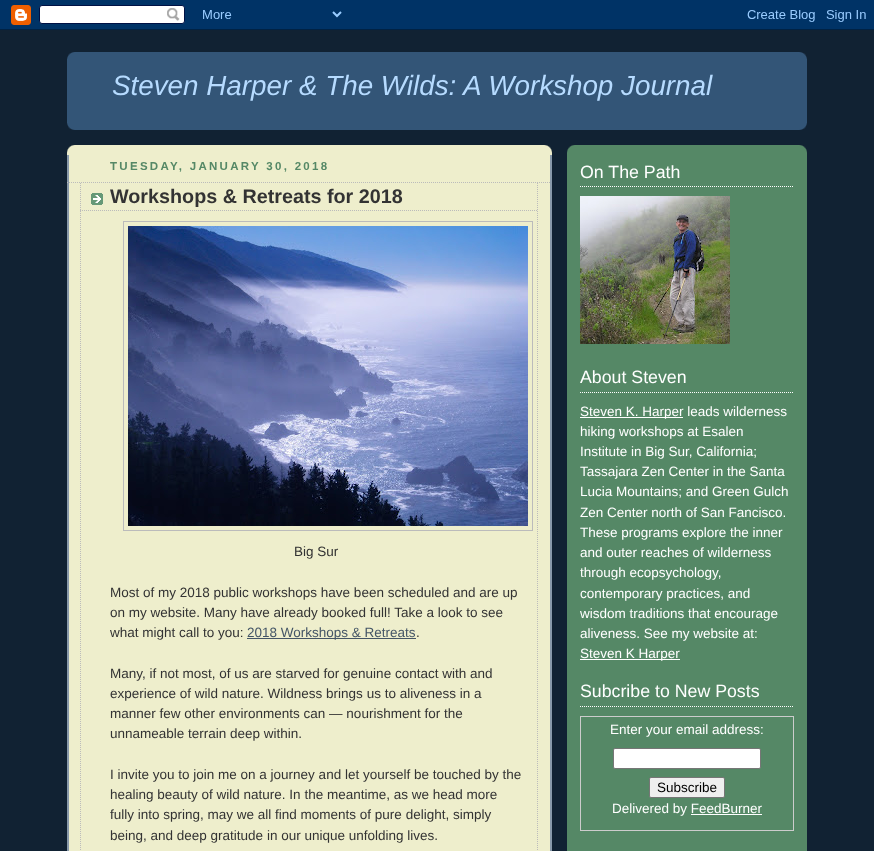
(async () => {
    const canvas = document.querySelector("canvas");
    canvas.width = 874;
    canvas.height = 851;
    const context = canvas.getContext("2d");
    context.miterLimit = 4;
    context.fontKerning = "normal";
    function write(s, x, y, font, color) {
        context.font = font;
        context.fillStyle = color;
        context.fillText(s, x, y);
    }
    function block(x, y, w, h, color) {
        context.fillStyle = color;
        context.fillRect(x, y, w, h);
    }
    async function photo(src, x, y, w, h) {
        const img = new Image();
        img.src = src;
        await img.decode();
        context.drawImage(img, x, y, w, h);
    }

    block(0, 0, 874, 851, "rgb(17, 34, 51)");
    await photo("media/1.png", 0, 0, 874, 30);
    block(67, 52, 740, 78, "rgb(51, 85, 119)");
    await photo("media/2.png", 67, 52, 740, 7);
    await photo("media/3.png", 67, 123, 740, 7);
    write("Steven Harper & The Wilds: A Workshop Journal", 112, 95, "italic 27.8px Liberation Sans", "rgb(182, 219, 255)");
    block(67, 145, 485, 706, "rgb(238, 238, 204)");
    await photo("media/4.png", 67, 145, 485, 8);
    await photo("media/5.png", 67, 155, 485, 696);
    context.letterSpacing = "2.3px";
    write("TUESDAY, JANUARY 30, 2018", 110, 170, "bold 11.5px Liberation Sans", "rgb(85, 136, 102)");
    context.beginPath();
    context.moveTo(67, 182.5);
    context.lineTo(551, 182.5);
    context.strokeStyle = "rgb(187, 187, 187)";
    context.setLineDash([1, 1]);
    context.stroke();
    await photo("media/6.png", 91, 193, 12, 12);
    context.beginPath();
    context.moveTo(537.5, 183);
    context.lineTo(537.5, 211);
    context.stroke();
    context.beginPath();
    context.moveTo(80, 210.5);
    context.lineTo(538, 210.5);
    context.stroke();
    context.beginPath();
    context.moveTo(80.5, 183);
    context.lineTo(80.5, 211);
    context.stroke();
    context.letterSpacing = "0px";
    write("Workshops & Retreats for 2018", 110, 203, "bold 19.75px Liberation Sans", "rgb(51, 51, 51)");
    context.beginPath();
    context.moveTo(537.5, 211);
    context.lineTo(537.5, 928);
    context.stroke();
    context.beginPath();
    context.moveTo(80.5, 211);
    context.lineTo(80.5, 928);
    context.stroke();
    context.setLineDash([]);
    context.strokeRect(123.5, 221.5, 409, 309);
    await photo("media/7.png", 128, 226, 400, 300);
    write("Big Sur", 294, 556, "13.5px Liberation Sans", "rgb(51, 51, 51)");
    write("Most of my 2018 public workshops have been scheduled and are up", 110, 597, "13.5px Liberation Sans", "rgb(51, 51, 51)");
    write("on my website. Many have already booked full! Take a look to see", 110, 617, "13.5px Liberation Sans", "rgb(51, 51, 51)");
    write("what might call to you:", 110, 637, "13.5px Liberation Sans", "rgb(51, 51, 51)");
    block(247, 638, 169, 1, "rgb(68, 85, 102)");
    write("2018 Workshops & Retreats", 247, 637, "13.5px Liberation Sans", "rgb(68, 85, 102)");
    write(".", 416, 637, "13.5px Liberation Sans", "rgb(51, 51, 51)");
    write("Many, if not most, of us are starved for genuine contact with and", 110, 678, "13.5px Liberation Sans", "rgb(51, 51, 51)");
    write("experience of wild nature. Wildness brings us to aliveness in a", 110, 698, "13.5px Liberation Sans", "rgb(51, 51, 51)");
    write("manner few other environments can — nourishment for the", 110, 718, "13.5px Liberation Sans", "rgb(51, 51, 51)");
    write("unnameable terrain deep within.", 110, 738, "13.5px Liberation Sans", "rgb(51, 51, 51)");
    write("I invite you to join me on a journey and let yourself be touched by the", 110, 779, "13.5px Liberation Sans", "rgb(51, 51, 51)");
    write("healing beauty of wild nature. In the meantime, as we head more", 110, 799, "13.5px Liberation Sans", "rgb(51, 51, 51)");
    write("fully into spring, may we all find moments of pure delight, simply", 110, 819, "13.5px Liberation Sans", "rgb(51, 51, 51)");
    write("being, and deep gratitude in our unique unfolding lives.", 110, 840, "13.5px Liberation Sans", "rgb(51, 51, 51)");
    block(567, 145, 240, 706, "rgb(85, 136, 102)");
    await photo("media/8.png", 567, 145, 240, 8);
    context.beginPath();
    context.moveTo(580, 186.5);
    context.lineTo(794, 186.5);
    context.strokeStyle = "rgb(255, 255, 255)";
    context.setLineDash([1, 1]);
    context.stroke();
    write("On The Path", 580, 178, "17.75px Liberation Sans", "rgb(255, 255, 255)");
    await photo("media/9.png", 580, 196, 150, 148);
    context.beginPath();
    context.moveTo(580, 392.5);
    context.lineTo(794, 392.5);
    context.stroke();
    write("About Steven", 580, 383, "17.75px Liberation Sans", "rgb(255, 255, 255)");
    block(580, 417, 103, 1, "rgb(255, 255, 255)");
    write("Steven K. Harper leads wilderness", 580, 416, "13.5px Liberation Sans", "rgb(255, 255, 255)");
    write("hiking workshops at Esalen", 580, 436, "13.5px Liberation Sans", "rgb(255, 255, 255)");
    write("Institute in Big Sur, California;", 580, 456, "13.5px Liberation Sans", "rgb(255, 255, 255)");
    write("Tassajara Zen Center in the Santa", 580, 476, "13.5px Liberation Sans", "rgb(255, 255, 255)");
    write("Lucia Mountains; and Green Gulch", 580, 496, "13.5px Liberation Sans", "rgb(255, 255, 255)");
    write("Zen Center north of San Fancisco.", 580, 517, "13.5px Liberation Sans", "rgb(255, 255, 255)");
    write("These programs explore the inner", 580, 537, "13.5px Liberation Sans", "rgb(255, 255, 255)");
    write("and outer reaches of wilderness", 580, 557, "13.5px Liberation Sans", "rgb(255, 255, 255)");
    write("through ecopsychology,", 580, 577, "13.5px Liberation Sans", "rgb(255, 255, 255)");
    write("contemporary practices, and", 580, 598, "13.5px Liberation Sans", "rgb(255, 255, 255)");
    write("wisdom traditions that encourage", 580, 618, "13.5px Liberation Sans", "rgb(255, 255, 255)");
    write("aliveness. See my website at:", 580, 638, "13.5px Liberation Sans", "rgb(255, 255, 255)");
    block(580, 659, 100, 1, "rgb(255, 255, 255)");
    write("Steven K Harper", 580, 658, "13.5px Liberation Sans", "rgb(255, 255, 255)");
    context.beginPath();
    context.moveTo(580, 706.5);
    context.lineTo(794, 706.5);
    context.stroke();
    write("Subcribe to New Posts", 580, 697, "17.75px Liberation Sans", "rgb(255, 255, 255)");
    context.strokeStyle = "rgb(204, 204, 204)";
    context.setLineDash([]);
    context.strokeRect(580.5, 716.5, 213, 114);
    write("Enter your email address:", 610, 734, "13.5px Liberation Sans", "rgb(255, 255, 255)");
    context.beginPath();
    context.roundRect(613.5, 748.5, 147, 20, 1.5);
    context.fill();
    context.strokeStyle = "rgb(118, 118, 118)";
    context.stroke();
    context.fillStyle = "rgb(239, 239, 239)";
    context.beginPath();
    context.roundRect(649.5, 777.5, 75, 20, 1.5);
    context.fill();
    context.stroke();
    write("Subscribe", 657, 792, "13.5px Liberation Sans", "rgb(0, 0, 0)");
    write("Delivered by FeedBurner", 612, 813, "13.5px Liberation Sans", "rgb(255, 255, 255)");
    block(691, 814, 71, 1, "rgb(255, 255, 255)");
})();
